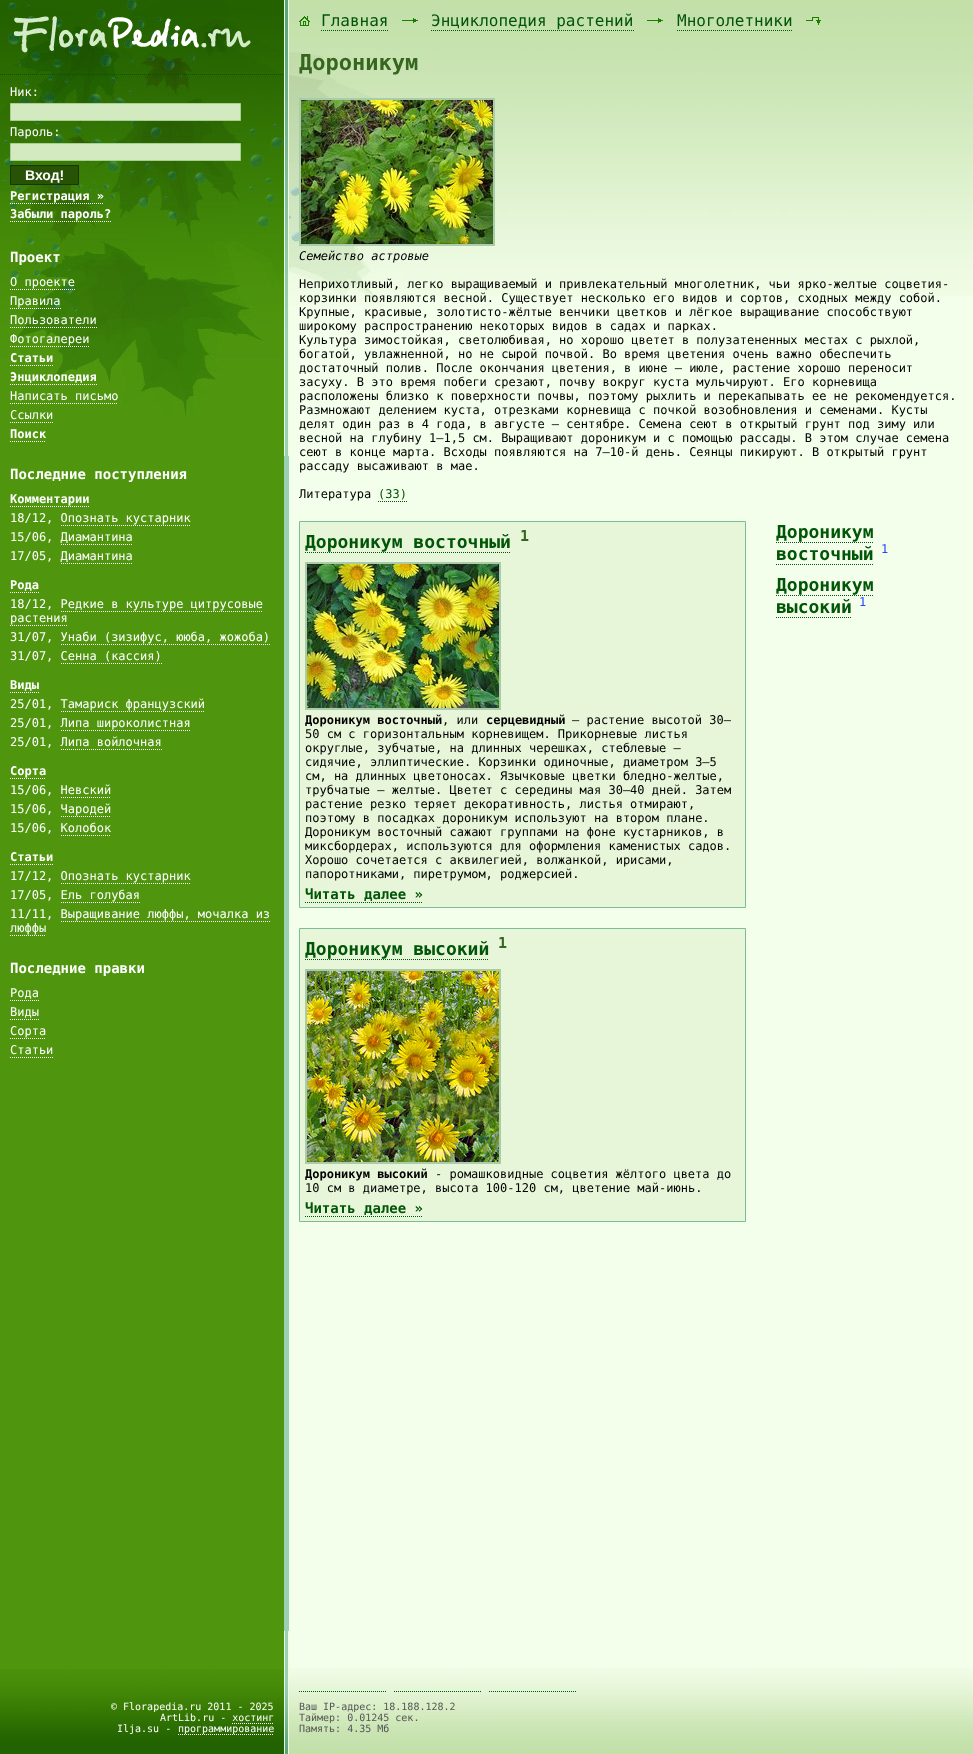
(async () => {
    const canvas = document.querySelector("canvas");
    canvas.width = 973;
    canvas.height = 1754;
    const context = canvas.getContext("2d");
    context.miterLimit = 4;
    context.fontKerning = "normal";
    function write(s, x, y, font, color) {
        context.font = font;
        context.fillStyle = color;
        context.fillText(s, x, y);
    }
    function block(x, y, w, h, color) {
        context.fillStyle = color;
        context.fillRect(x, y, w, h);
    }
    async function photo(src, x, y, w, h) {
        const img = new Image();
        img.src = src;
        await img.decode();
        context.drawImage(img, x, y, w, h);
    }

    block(0, 0, 973, 1754, "rgb(244, 255, 235)");
    block(0, 416, 284, 1253, "rgb(79, 150, 14)");
    await photo("media/1.png", 0, 0, 284, 416);
    await photo("media/2.png", 14, 16, 237, 37);
    context.beginPath();
    context.moveTo(0, 74.5);
    context.lineTo(284, 74.5);
    context.strokeStyle = "rgb(1, 85, 7)";
    context.setLineDash([1, 1]);
    context.stroke();
    write("Ник:", 10, 96, "12px DejaVu Sans Mono", "rgb(255, 255, 255)");
    context.fillStyle = "rgb(211, 234, 192)";
    context.beginPath();
    context.rect(10.5, 103.5, 230, 17);
    context.fill();
    context.strokeStyle = "rgb(167, 207, 141)";
    context.setLineDash([]);
    context.stroke();
    write("Пароль:", 10, 136, "12px DejaVu Sans Mono", "rgb(255, 255, 255)");
    context.fillStyle = "rgb(211, 234, 192)";
    context.beginPath();
    context.rect(10.5, 143.5, 230, 17);
    context.fill();
    context.stroke();
    context.fillStyle = "rgb(40, 82, 6)";
    context.beginPath();
    context.rect(10.5, 165.5, 68, 19);
    context.fill();
    context.strokeStyle = "rgb(25, 55, 0)";
    context.stroke();
    write("Вход!", 25, 180, "bold 14px Liberation Sans", "rgb(255, 255, 255)");
    write("Регистрация »", 10, 200, "bold 12px DejaVu Sans Mono", "rgb(255, 255, 255)");
    context.beginPath();
    context.moveTo(10, 203.5);
    context.lineTo(104, 203.5);
    context.strokeStyle = "rgb(255, 255, 255)";
    context.setLineDash([1, 1]);
    context.stroke();
    write("Забыли пароль?", 10, 218, "bold 12px DejaVu Sans Mono", "rgb(255, 255, 255)");
    context.beginPath();
    context.moveTo(10, 221.5);
    context.lineTo(111, 221.5);
    context.stroke();
    write("Проект", 10, 262, "bold 14px DejaVu Sans Mono", "rgb(255, 255, 255)");
    write("О проекте", 10, 286, "12px DejaVu Sans Mono", "rgb(255, 255, 255)");
    context.beginPath();
    context.moveTo(10, 289.5);
    context.lineTo(75, 289.5);
    context.stroke();
    write("Правила", 10, 305, "12px DejaVu Sans Mono", "rgb(255, 255, 255)");
    context.beginPath();
    context.moveTo(10, 308.5);
    context.lineTo(61, 308.5);
    context.stroke();
    write("Пользователи", 10, 324, "12px DejaVu Sans Mono", "rgb(255, 255, 255)");
    context.beginPath();
    context.moveTo(10, 327.5);
    context.lineTo(97, 327.5);
    context.stroke();
    write("Фотогалереи", 10, 343, "12px DejaVu Sans Mono", "rgb(255, 255, 255)");
    context.beginPath();
    context.moveTo(10, 346.5);
    context.lineTo(89, 346.5);
    context.stroke();
    write("Статьи", 10, 362, "bold 12px DejaVu Sans Mono", "rgb(255, 255, 255)");
    context.beginPath();
    context.moveTo(10, 365.5);
    context.lineTo(53, 365.5);
    context.stroke();
    write("Энциклопедия", 10, 381, "bold 12px DejaVu Sans Mono", "rgb(255, 255, 255)");
    context.beginPath();
    context.moveTo(10, 384.5);
    context.lineTo(97, 384.5);
    context.stroke();
    write("Написать письмо", 10, 400, "12px DejaVu Sans Mono", "rgb(255, 255, 255)");
    context.beginPath();
    context.moveTo(10, 403.5);
    context.lineTo(118, 403.5);
    context.stroke();
    write("Ссылки", 10, 419, "12px DejaVu Sans Mono", "rgb(255, 255, 255)");
    context.beginPath();
    context.moveTo(10, 422.5);
    context.lineTo(53, 422.5);
    context.stroke();
    write("Поиск", 10, 438, "bold 12px DejaVu Sans Mono", "rgb(255, 255, 255)");
    context.beginPath();
    context.moveTo(10, 441.5);
    context.lineTo(46, 441.5);
    context.stroke();
    write("Последние поступления", 10, 479, "bold 14px DejaVu Sans Mono", "rgb(255, 255, 255)");
    write("Комментарии", 10, 503, "bold 12px DejaVu Sans Mono", "rgb(255, 255, 255)");
    context.beginPath();
    context.moveTo(10, 506.5);
    context.lineTo(89, 506.5);
    context.stroke();
    write("18/12, Опознать кустарник", 10, 522, "12px DejaVu Sans Mono", "rgb(255, 255, 255)");
    context.beginPath();
    context.moveTo(61, 525.5);
    context.lineTo(191, 525.5);
    context.stroke();
    write("15/06, Диамантина", 10, 541, "12px DejaVu Sans Mono", "rgb(255, 255, 255)");
    context.beginPath();
    context.moveTo(61, 544.5);
    context.lineTo(133, 544.5);
    context.stroke();
    write("17/05, Диамантина", 10, 560, "12px DejaVu Sans Mono", "rgb(255, 255, 255)");
    context.beginPath();
    context.moveTo(61, 563.5);
    context.lineTo(133, 563.5);
    context.stroke();
    write("Рода", 10, 589, "bold 12px DejaVu Sans Mono", "rgb(255, 255, 255)");
    context.beginPath();
    context.moveTo(10, 592.5);
    context.lineTo(39, 592.5);
    context.stroke();
    write("18/12, Редкие в культуре цитрусовые", 10, 608, "12px DejaVu Sans Mono", "rgb(255, 255, 255)");
    write("растения", 10, 622, "12px DejaVu Sans Mono", "rgb(255, 255, 255)");
    context.beginPath();
    context.moveTo(61, 611.5);
    context.lineTo(263, 611.5);
    context.stroke();
    context.beginPath();
    context.moveTo(10, 625.5);
    context.lineTo(68, 625.5);
    context.stroke();
    write("31/07, Унаби (зизифус, ююба, жожоба)", 10, 641, "12px DejaVu Sans Mono", "rgb(255, 255, 255)");
    context.beginPath();
    context.moveTo(61, 644.5);
    context.lineTo(270, 644.5);
    context.stroke();
    write("31/07, Сенна (кассия)", 10, 660, "12px DejaVu Sans Mono", "rgb(255, 255, 255)");
    context.beginPath();
    context.moveTo(61, 663.5);
    context.lineTo(162, 663.5);
    context.stroke();
    write("Виды", 10, 689, "bold 12px DejaVu Sans Mono", "rgb(255, 255, 255)");
    context.beginPath();
    context.moveTo(10, 692.5);
    context.lineTo(39, 692.5);
    context.stroke();
    write("25/01, Тамариск французский", 10, 708, "12px DejaVu Sans Mono", "rgb(255, 255, 255)");
    context.beginPath();
    context.moveTo(61, 711.5);
    context.lineTo(205, 711.5);
    context.stroke();
    write("25/01, Липа широколистная", 10, 727, "12px DejaVu Sans Mono", "rgb(255, 255, 255)");
    context.beginPath();
    context.moveTo(61, 730.5);
    context.lineTo(191, 730.5);
    context.stroke();
    write("25/01, Липа войлочная", 10, 746, "12px DejaVu Sans Mono", "rgb(255, 255, 255)");
    context.beginPath();
    context.moveTo(61, 749.5);
    context.lineTo(162, 749.5);
    context.stroke();
    write("Сорта", 10, 775, "bold 12px DejaVu Sans Mono", "rgb(255, 255, 255)");
    context.beginPath();
    context.moveTo(10, 778.5);
    context.lineTo(46, 778.5);
    context.stroke();
    write("15/06, Невский", 10, 794, "12px DejaVu Sans Mono", "rgb(255, 255, 255)");
    context.beginPath();
    context.moveTo(61, 797.5);
    context.lineTo(111, 797.5);
    context.stroke();
    write("15/06, Чародей", 10, 813, "12px DejaVu Sans Mono", "rgb(255, 255, 255)");
    context.beginPath();
    context.moveTo(61, 816.5);
    context.lineTo(111, 816.5);
    context.stroke();
    write("15/06, Колобок", 10, 832, "12px DejaVu Sans Mono", "rgb(255, 255, 255)");
    context.beginPath();
    context.moveTo(61, 835.5);
    context.lineTo(111, 835.5);
    context.stroke();
    write("Статьи", 10, 861, "bold 12px DejaVu Sans Mono", "rgb(255, 255, 255)");
    context.beginPath();
    context.moveTo(10, 864.5);
    context.lineTo(53, 864.5);
    context.stroke();
    write("17/12, Опознать кустарник", 10, 880, "12px DejaVu Sans Mono", "rgb(255, 255, 255)");
    context.beginPath();
    context.moveTo(61, 883.5);
    context.lineTo(191, 883.5);
    context.stroke();
    write("17/05, Ель голубая", 10, 899, "12px DejaVu Sans Mono", "rgb(255, 255, 255)");
    context.beginPath();
    context.moveTo(61, 902.5);
    context.lineTo(140, 902.5);
    context.stroke();
    write("11/11, Выращивание люффы, мочалка из", 10, 918, "12px DejaVu Sans Mono", "rgb(255, 255, 255)");
    write("люффы", 10, 932, "12px DejaVu Sans Mono", "rgb(255, 255, 255)");
    context.beginPath();
    context.moveTo(61, 921.5);
    context.lineTo(270, 921.5);
    context.stroke();
    context.beginPath();
    context.moveTo(10, 935.5);
    context.lineTo(46, 935.5);
    context.stroke();
    write("Последние правки", 10, 973, "bold 14px DejaVu Sans Mono", "rgb(255, 255, 255)");
    write("Рода", 10, 997, "12px DejaVu Sans Mono", "rgb(255, 255, 255)");
    context.beginPath();
    context.moveTo(10, 1000.5);
    context.lineTo(39, 1000.5);
    context.stroke();
    write("Виды", 10, 1016, "12px DejaVu Sans Mono", "rgb(255, 255, 255)");
    context.beginPath();
    context.moveTo(10, 1019.5);
    context.lineTo(39, 1019.5);
    context.stroke();
    write("Сорта", 10, 1035, "12px DejaVu Sans Mono", "rgb(255, 255, 255)");
    context.beginPath();
    context.moveTo(10, 1038.5);
    context.lineTo(46, 1038.5);
    context.stroke();
    write("Статьи", 10, 1054, "12px DejaVu Sans Mono", "rgb(255, 255, 255)");
    context.beginPath();
    context.moveTo(10, 1057.5);
    context.lineTo(53, 1057.5);
    context.stroke();
    block(284, 456, 5, 1175, "rgb(154, 209, 180)");
    await photo("media/3.png", 284, 0, 5, 456);
    await photo("media/4.png", 289, 0, 684, 296);
    await photo("media/5.png", 289, 52, 115, 254);
    await photo("media/6.png", 299, 16, 11, 10);
    write("Главная", 321, 26, "16px DejaVu Sans Mono", "rgb(1, 85, 7)");
    context.beginPath();
    context.moveTo(321, 30.5);
    context.lineTo(388, 30.5);
    context.strokeStyle = "rgb(1, 85, 7)";
    context.stroke();
    await photo("media/7.png", 402, 18, 16, 5);
    write("Энциклопедия растений", 431, 26, "16px DejaVu Sans Mono", "rgb(1, 85, 7)");
    context.beginPath();
    context.moveTo(431, 30.5);
    context.lineTo(634, 30.5);
    context.stroke();
    await photo("media/8.png", 647, 18, 16, 5);
    write("Многолетники", 677, 26, "16px DejaVu Sans Mono", "rgb(1, 85, 7)");
    context.beginPath();
    context.moveTo(677, 30.5);
    context.lineTo(793, 30.5);
    context.stroke();
    await photo("media/9.png", 806, 17, 15, 8);
    write("Дороникум", 299, 70, "bold 22px DejaVu Sans Mono", "rgb(54, 103, 32)");
    context.strokeStyle = "rgb(170, 204, 170)";
    context.lineWidth = 2;
    context.setLineDash([]);
    context.strokeRect(300, 99, 194, 146);
    await photo("media/10.png", 301, 100, 192, 144);
    write("Семейство астровые", 299, 260, "italic 12px DejaVu Sans Mono", "rgb(0, 0, 0)");
    write("Неприхотливый, легко выращиваемый и привлекательный многолетник, чьи ярко-желтые соцветия-", 299, 288, "12px DejaVu Sans Mono", "rgb(0, 0, 0)");
    write("корзинки появляются весной. Существует несколько его видов и сортов, сходных между собой.", 299, 302, "12px DejaVu Sans Mono", "rgb(0, 0, 0)");
    write("Крупные, красивые, золотисто-жёлтые венчики цветков и лёгкое выращивание способствуют", 299, 316, "12px DejaVu Sans Mono", "rgb(0, 0, 0)");
    write("широкому распространению некоторых видов в садах и парках.", 299, 330, "12px DejaVu Sans Mono", "rgb(0, 0, 0)");
    write("Культура зимостойкая, светолюбивая, но хорошо цветет в полузатененных местах с рыхлой,", 299, 344, "12px DejaVu Sans Mono", "rgb(0, 0, 0)");
    write("богатой, увлажненной, но не сырой почвой. Во время цветения очень важно обеспечить", 299, 358, "12px DejaVu Sans Mono", "rgb(0, 0, 0)");
    write("достаточный полив. После окончания цветения, в июне – июле, растение хорошо переносит", 299, 372, "12px DejaVu Sans Mono", "rgb(0, 0, 0)");
    write("засуху. В это время побеги срезают, почву вокруг куста мульчируют. Его корневища", 299, 386, "12px DejaVu Sans Mono", "rgb(0, 0, 0)");
    write("расположены близко к поверхности почвы, поэтому рыхлить и перекапывать ее не рекомендуется.", 299, 400, "12px DejaVu Sans Mono", "rgb(0, 0, 0)");
    write("Размножают делением куста, отрезками корневища с почкой возобновления и семенами. Кусты", 299, 414, "12px DejaVu Sans Mono", "rgb(0, 0, 0)");
    write("делят один раз в 4 года, в августе – сентябре. Семена сеют в открытый грунт под зиму или", 299, 428, "12px DejaVu Sans Mono", "rgb(0, 0, 0)");
    write("весной на глубину 1–1,5 см. Выращивают дороникум и с помощью рассады. В этом случае семена", 299, 442, "12px DejaVu Sans Mono", "rgb(0, 0, 0)");
    write("сеют в конце марта. Всходы появляются на 7—10-й день. Сеянцы пикируют. В открытый грунт", 299, 456, "12px DejaVu Sans Mono", "rgb(0, 0, 0)");
    write("рассаду высаживают в мае.", 299, 470, "12px DejaVu Sans Mono", "rgb(0, 0, 0)");
    write("Литература", 299, 498, "12px DejaVu Sans Mono", "rgb(0, 0, 0)");
    write("(33)", 378, 498, "12px DejaVu Sans Mono", "rgb(1, 85, 7)");
    context.beginPath();
    context.moveTo(378, 501.5);
    context.lineTo(407, 501.5);
    context.strokeStyle = "rgb(1, 85, 7)";
    context.lineWidth = 1;
    context.setLineDash([1, 1]);
    context.stroke();
    context.fillStyle = "rgb(231, 245, 216)";
    context.beginPath();
    context.rect(299.5, 521.5, 446, 386);
    context.fill();
    context.strokeStyle = "rgb(124, 188, 154)";
    context.setLineDash([]);
    context.stroke();
    write("Дороникум восточный", 305, 548, "bold 18px DejaVu Sans Mono", "rgb(1, 85, 7)");
    context.beginPath();
    context.moveTo(305, 552.5);
    context.lineTo(511, 552.5);
    context.strokeStyle = "rgb(1, 85, 7)";
    context.setLineDash([1, 1]);
    context.stroke();
    write("1", 520, 541, "bold 15px DejaVu Sans Mono", "rgb(54, 103, 32)");
    context.strokeStyle = "rgb(170, 204, 170)";
    context.lineWidth = 2;
    context.setLineDash([]);
    context.strokeRect(306, 563, 194, 146);
    await photo("media/11.png", 307, 564, 192, 144);
    write("Дороникум восточный", 305, 724, "bold 12px DejaVu Sans Mono", "rgb(0, 0, 0)");
    write(", или", 442, 724, "12px DejaVu Sans Mono", "rgb(0, 0, 0)");
    write("серцевидный", 486, 724, "bold 12px DejaVu Sans Mono", "rgb(0, 0, 0)");
    write("– растение высотой 30–", 572, 724, "12px DejaVu Sans Mono", "rgb(0, 0, 0)");
    write("50 см с горизонтальным корневищем. Прикорневые листья", 305, 738, "12px DejaVu Sans Mono", "rgb(0, 0, 0)");
    write("округлые, зубчатые, на длинных черешках, стеблевые –", 305, 752, "12px DejaVu Sans Mono", "rgb(0, 0, 0)");
    write("сидячие, эллиптические. Корзинки одиночные, диаметром 3–5", 305, 766, "12px DejaVu Sans Mono", "rgb(0, 0, 0)");
    write("см, на длинных цветоносах. Язычковые цветки бледно-желтые,", 305, 780, "12px DejaVu Sans Mono", "rgb(0, 0, 0)");
    write("трубчатые – желтые. Цветет с середины мая 30–40 дней. Затем", 305, 794, "12px DejaVu Sans Mono", "rgb(0, 0, 0)");
    write("растение резко теряет декоративность, листья отмирают,", 305, 808, "12px DejaVu Sans Mono", "rgb(0, 0, 0)");
    write("поэтому в посадках дороникум используют на втором плане.", 305, 822, "12px DejaVu Sans Mono", "rgb(0, 0, 0)");
    write("Дороникум восточный сажают группами на фоне кустарников, в", 305, 836, "12px DejaVu Sans Mono", "rgb(0, 0, 0)");
    write("миксбордерах, используются для оформления каменистых садов.", 305, 850, "12px DejaVu Sans Mono", "rgb(0, 0, 0)");
    write("Хорошо сочетается с аквилегией, волжанкой, ирисами,", 305, 864, "12px DejaVu Sans Mono", "rgb(0, 0, 0)");
    write("папоротниками, пиретрумом, роджерсией.", 305, 878, "12px DejaVu Sans Mono", "rgb(0, 0, 0)");
    write("Читать далее »", 305, 899, "bold 14px DejaVu Sans Mono", "rgb(1, 85, 7)");
    context.beginPath();
    context.moveTo(305, 902.5);
    context.lineTo(423, 902.5);
    context.strokeStyle = "rgb(1, 85, 7)";
    context.lineWidth = 1;
    context.setLineDash([1, 1]);
    context.stroke();
    context.fillStyle = "rgb(231, 245, 216)";
    context.beginPath();
    context.rect(299.5, 928.5, 446, 293);
    context.fill();
    context.strokeStyle = "rgb(124, 188, 154)";
    context.setLineDash([]);
    context.stroke();
    write("Дороникум высокий", 305, 955, "bold 18px DejaVu Sans Mono", "rgb(1, 85, 7)");
    context.beginPath();
    context.moveTo(305, 959.5);
    context.lineTo(489, 959.5);
    context.strokeStyle = "rgb(1, 85, 7)";
    context.setLineDash([1, 1]);
    context.stroke();
    write("1", 498, 948, "bold 15px DejaVu Sans Mono", "rgb(54, 103, 32)");
    context.strokeStyle = "rgb(170, 204, 170)";
    context.lineWidth = 2;
    context.setLineDash([]);
    context.strokeRect(306, 970, 194, 193);
    await photo("media/12.png", 307, 971, 192, 191);
    write("Дороникум высокий", 305, 1178, "bold 12px DejaVu Sans Mono", "rgb(0, 0, 0)");
    write("- ромашковидные соцветия жёлтого цвета до", 435, 1178, "12px DejaVu Sans Mono", "rgb(0, 0, 0)");
    write("10 см в диаметре, высота 100-120 см, цветение май-июнь.", 305, 1192, "12px DejaVu Sans Mono", "rgb(0, 0, 0)");
    write("Читать далее »", 305, 1213, "bold 14px DejaVu Sans Mono", "rgb(1, 85, 7)");
    context.beginPath();
    context.moveTo(305, 1216.5);
    context.lineTo(423, 1216.5);
    context.strokeStyle = "rgb(1, 85, 7)";
    context.lineWidth = 1;
    context.setLineDash([1, 1]);
    context.stroke();
    write("Дороникум", 776, 538, "bold 18px DejaVu Sans Mono", "rgb(1, 85, 7)");
    context.beginPath();
    context.moveTo(776, 542.5);
    context.lineTo(874, 542.5);
    context.stroke();
    write("восточный", 776, 560, "bold 18px DejaVu Sans Mono", "rgb(1, 85, 7)");
    context.beginPath();
    context.moveTo(776, 564.5);
    context.lineTo(874, 564.5);
    context.stroke();
    write("1", 881, 553, "12px DejaVu Sans Mono", "rgb(34, 68, 255)");
    write("Дороникум", 776, 591, "bold 18px DejaVu Sans Mono", "rgb(1, 85, 7)");
    context.beginPath();
    context.moveTo(776, 595.5);
    context.lineTo(874, 595.5);
    context.stroke();
    write("высокий", 776, 613, "bold 18px DejaVu Sans Mono", "rgb(1, 85, 7)");
    context.beginPath();
    context.moveTo(776, 617.5);
    context.lineTo(852, 617.5);
    context.stroke();
    write("1", 859, 606, "12px DejaVu Sans Mono", "rgb(34, 68, 255)");
    await photo("media/13.png", 0, 1669, 284, 85);
    write("© Florapedia.ru 2011 - 2025", 111, 1710, "10px DejaVu Sans Mono", "rgb(255, 255, 255)");
    write("ArtLib.ru - хостинг", 160, 1721, "10px DejaVu Sans Mono", "rgb(255, 255, 255)");
    context.beginPath();
    context.moveTo(232, 1723.5);
    context.lineTo(274, 1723.5);
    context.strokeStyle = "rgb(255, 255, 255)";
    context.stroke();
    write("Ilja.su -", 117, 1732, "10px DejaVu Sans Mono", "rgb(255, 255, 255)");
    context.beginPath();
    context.moveTo(178, 1734.5);
    context.lineTo(274, 1734.5);
    context.stroke();
    write("программирование", 178, 1732, "10px DejaVu Sans Mono", "rgb(255, 255, 255)");
    await photo("media/14.png", 284, 1631, 5, 123);
    await photo("media/15.png", 289, 1668, 684, 86);
    context.beginPath();
    context.moveTo(299, 1691.5);
    context.lineTo(387, 1691.5);
    context.strokeStyle = "rgb(1, 85, 7)";
    context.stroke();
    context.beginPath();
    context.moveTo(394, 1691.5);
    context.lineTo(482, 1691.5);
    context.stroke();
    context.beginPath();
    context.moveTo(489, 1691.5);
    context.lineTo(577, 1691.5);
    context.stroke();
    write("Ваш IP-адрес: 18.188.128.2", 299, 1710, "10px DejaVu Sans Mono", "rgb(85, 85, 85)");
    write("Таймер: 0.01245 сек.", 299, 1721, "10px DejaVu Sans Mono", "rgb(85, 85, 85)");
    write("Память: 4.35 Мб", 299, 1732, "10px DejaVu Sans Mono", "rgb(85, 85, 85)");
})();
